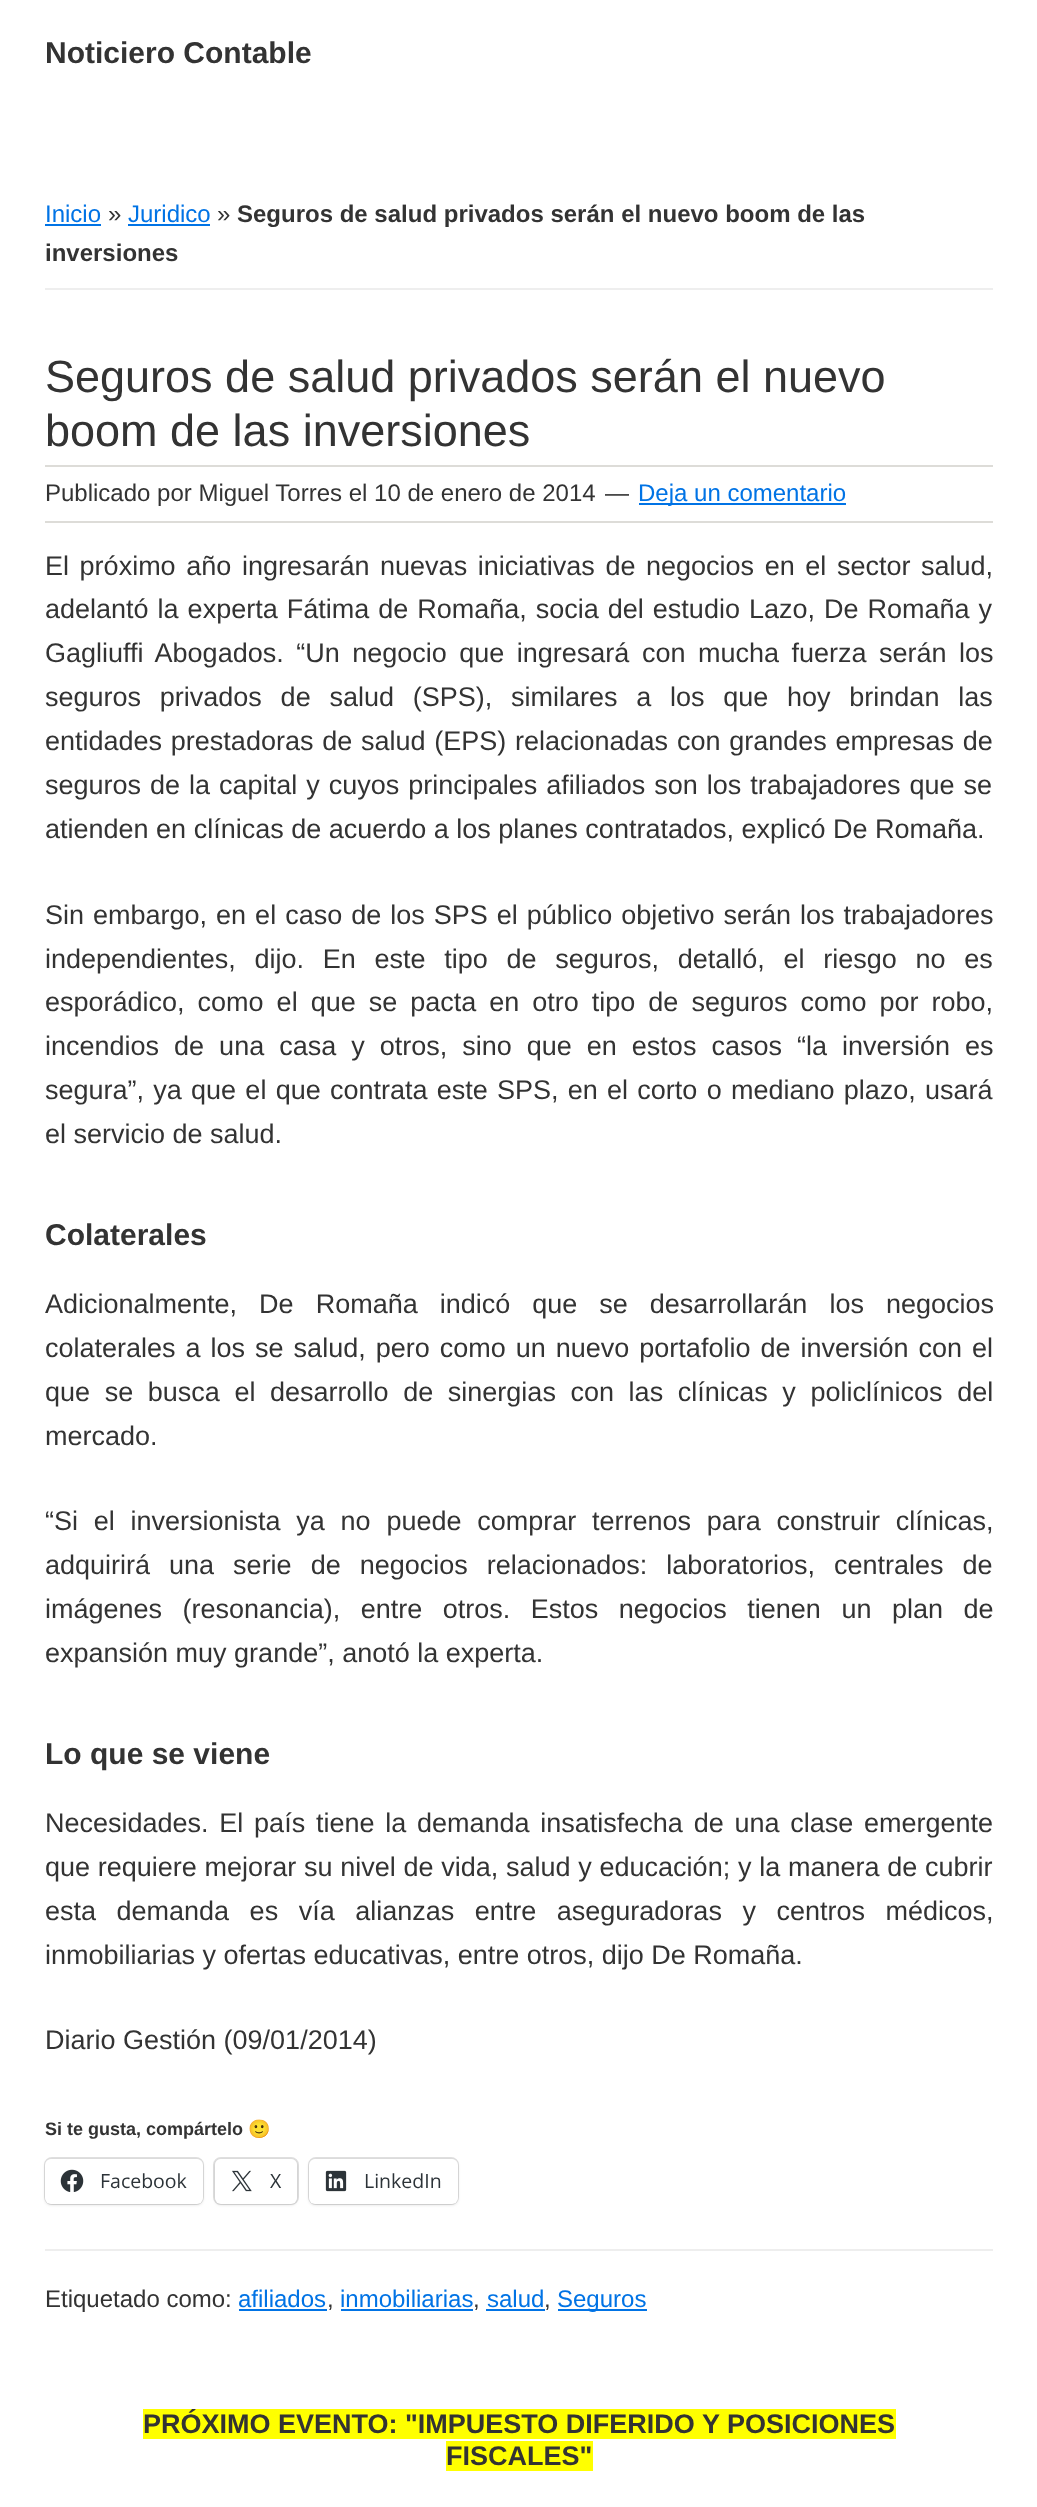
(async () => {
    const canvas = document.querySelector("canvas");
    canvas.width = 1037;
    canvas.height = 2507;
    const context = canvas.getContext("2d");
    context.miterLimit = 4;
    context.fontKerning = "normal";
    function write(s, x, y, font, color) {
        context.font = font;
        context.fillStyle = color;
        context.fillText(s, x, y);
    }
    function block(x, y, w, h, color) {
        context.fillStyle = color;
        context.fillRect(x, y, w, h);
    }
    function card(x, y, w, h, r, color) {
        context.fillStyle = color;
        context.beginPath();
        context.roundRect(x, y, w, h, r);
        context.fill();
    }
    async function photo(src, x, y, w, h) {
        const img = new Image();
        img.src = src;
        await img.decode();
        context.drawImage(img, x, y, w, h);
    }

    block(0, 0, 1037, 2507, "rgb(255, 255, 255)");
    write("Noticiero Contable", 45, 63, "bold 30px Liberation Sans", "rgb(51, 51, 51)");
    block(45, 288, 948, 2, "rgb(238, 238, 238)");
    write("Inicio", 45, 222, "24px Liberation Sans", "rgb(0, 115, 229)");
    block(45, 224, 56, 2, "rgb(0, 115, 229)");
    write("»", 108, 222, "24px Liberation Sans", "rgb(51, 51, 51)");
    write("Juridico", 128, 222, "24px Liberation Sans", "rgb(0, 115, 229)");
    block(128, 224, 82, 2, "rgb(0, 115, 229)");
    write("»", 217, 222, "24px Liberation Sans", "rgb(51, 51, 51)");
    write("Seguros de salud privados serán el nuevo boom de las", 237, 222, "bold 24px Liberation Sans", "rgb(51, 51, 51)");
    write("inversiones", 45, 261, "bold 24px Liberation Sans", "rgb(51, 51, 51)");
    write("Seguros de salud privados serán el nuevo", 45, 392, "45px Liberation Sans", "rgb(51, 51, 51)");
    write("boom de las inversiones", 45, 446, "45px Liberation Sans", "rgb(51, 51, 51)");
    block(45, 465, 948, 2, "rgb(221, 220, 216)");
    block(45, 521, 948, 2, "rgb(221, 220, 216)");
    write("Publicado por Miguel Torres el 10 de enero de 2014", 45, 501, "24px Liberation Sans", "rgb(51, 51, 51)");
    write("—", 605, 501, "24px Liberation Sans", "rgb(51, 51, 51)");
    block(639, 503, 207, 2, "rgb(0, 115, 229)");
    write("Deja un comentario", 638, 501, "24px Liberation Sans", "rgb(0, 115, 229)");
    context.wordSpacing = "3.1px";
    write("El próximo año ingresarán nuevas iniciativas de negocios en el sector salud,", 45, 575, "27px Liberation Sans", "rgb(51, 51, 51)");
    context.wordSpacing = "1.5px";
    write("adelantó la experta Fátima de Romaña, socia del estudio Lazo, De Romaña y", 45, 618, "27px Liberation Sans", "rgb(51, 51, 51)");
    context.wordSpacing = "5px";
    write("Gagliuffi Abogados. “Un negocio que ingresará con mucha fuerza serán los", 45, 662, "27px Liberation Sans", "rgb(51, 51, 51)");
    context.wordSpacing = "11.25px";
    write("seguros privados de salud (SPS), similares a los que hoy brindan las", 45, 706, "27px Liberation Sans", "rgb(51, 51, 51)");
    context.wordSpacing = "1.25px";
    write("entidades prestadoras de salud (EPS) relacionadas con grandes empresas de", 45, 750, "27px Liberation Sans", "rgb(51, 51, 51)");
    context.wordSpacing = "1.5px";
    write("seguros de la capital y cuyos principales afiliados son los trabajadores que se", 45, 794, "27px Liberation Sans", "rgb(51, 51, 51)");
    context.wordSpacing = "0px";
    write("atienden en clínicas de acuerdo a los planes contratados, explicó De Romaña.", 45, 838, "27px Liberation Sans", "rgb(51, 51, 51)");
    context.wordSpacing = "1.5px";
    write("Sin embargo, en el caso de los SPS el público objetivo serán los trabajadores", 45, 924, "27px Liberation Sans", "rgb(51, 51, 51)");
    context.wordSpacing = "11.25px";
    write("independientes, dijo. En este tipo de seguros, detalló, el riesgo no es", 45, 968, "27px Liberation Sans", "rgb(51, 51, 51)");
    context.wordSpacing = "5.5px";
    write("esporádico, como el que se pacta en otro tipo de seguros como por robo,", 45, 1011, "27px Liberation Sans", "rgb(51, 51, 51)");
    context.wordSpacing = "7.5px";
    write("incendios de una casa y otros, sino que en estos casos “la inversión es", 45, 1055, "27px Liberation Sans", "rgb(51, 51, 51)");
    context.wordSpacing = "1.75px";
    write("segura”, ya que el que contrata este SPS, en el corto o mediano plazo, usará", 45, 1099, "27px Liberation Sans", "rgb(51, 51, 51)");
    context.wordSpacing = "0px";
    write("el servicio de salud.", 45, 1143, "27px Liberation Sans", "rgb(51, 51, 51)");
    write("Colaterales", 45, 1245, "bold 30px Liberation Sans", "rgb(51, 51, 51)");
    context.wordSpacing = "14.5px";
    write("Adicionalmente, De Romaña indicó que se desarrollarán los negocios", 45, 1313, "27px Liberation Sans", "rgb(51, 51, 51)");
    context.wordSpacing = "2.5px";
    write("colaterales a los se salud, pero como un nuevo portafolio de inversión con el", 45, 1357, "27px Liberation Sans", "rgb(51, 51, 51)");
    context.wordSpacing = "7.1px";
    write("que se busca el desarrollo de sinergias con las clínicas y policlínicos del", 45, 1401, "27px Liberation Sans", "rgb(51, 51, 51)");
    context.wordSpacing = "0px";
    write("mercado.", 45, 1445, "27px Liberation Sans", "rgb(51, 51, 51)");
    context.wordSpacing = "8.25px";
    write("“Si el inversionista ya no puede comprar terrenos para construir clínicas,", 45, 1530, "27px Liberation Sans", "rgb(51, 51, 51)");
    context.wordSpacing = "11.5px";
    write("adquirirá una serie de negocios relacionados: laboratorios, centrales de", 45, 1574, "27px Liberation Sans", "rgb(51, 51, 51)");
    context.wordSpacing = "13px";
    write("imágenes (resonancia), entre otros. Estos negocios tienen un plan de", 45, 1618, "27px Liberation Sans", "rgb(51, 51, 51)");
    context.wordSpacing = "0px";
    write("expansión muy grande”, anotó la experta.", 45, 1662, "27px Liberation Sans", "rgb(51, 51, 51)");
    write("Lo que se viene", 45, 1764, "bold 30px Liberation Sans", "rgb(51, 51, 51)");
    context.wordSpacing = "3.25px";
    write("Necesidades. El país tiene la demanda insatisfecha de una clase emergente", 45, 1832, "27px Liberation Sans", "rgb(51, 51, 51)");
    context.wordSpacing = "0.25px";
    write("que requiere mejorar su nivel de vida, salud y educación; y la manera de cubrir", 45, 1876, "27px Liberation Sans", "rgb(51, 51, 51)");
    context.wordSpacing = "13px";
    write("esta demanda es vía alianzas entre aseguradoras y centros médicos,", 45, 1920, "27px Liberation Sans", "rgb(51, 51, 51)");
    context.wordSpacing = "0px";
    write("inmobiliarias y ofertas educativas, entre otros, dijo De Romaña.", 45, 1964, "27px Liberation Sans", "rgb(51, 51, 51)");
    write("Diario Gestión (09/01/2014)", 45, 2049, "27px Liberation Sans", "rgb(51, 51, 51)");
    write("Si te gusta, compártelo", 45, 2135, "bold 18px Liberation Sans", "rgb(51, 51, 51)");
    write("🙂", 248, 2135, "bold 18px Noto Color Emoji", "rgb(51, 51, 51)");
    context.beginPath();
    context.roundRect(45, 2158, 158, 46, 7);
    context.strokeStyle = "rgb(224, 224, 224)";
    context.lineWidth = 2;
    context.stroke();
    context.fillStyle = "rgba(0, 0, 0, 0.12)";
    context.filter = "blur(1.5px)";
    context.beginPath();
    context.roundRect(45, 2160, 158, 45, 6);
    context.fill();
    context.filter = "none";
    card(45, 2159, 158, 45, 6, "rgb(255, 255, 255)");
    await photo("media/1.png", 60, 2169, 24, 23);
    write("Facebook", 100, 2188, "19.5px Open Sans", "rgb(44, 51, 56)");
    context.beginPath();
    context.roundRect(214, 2158, 84, 46, 7);
    context.stroke();
    context.fillStyle = "rgba(0, 0, 0, 0.12)";
    context.filter = "blur(1.5px)";
    context.beginPath();
    context.roundRect(215, 2160, 82, 45, 6);
    context.fill();
    context.filter = "none";
    card(215, 2159, 82, 45, 6, "rgb(255, 255, 255)");
    await photo("media/2.png", 232, 2170, 20, 22);
    write("X", 270, 2188, "19.5px Open Sans", "rgb(44, 51, 56)");
    context.beginPath();
    context.roundRect(309, 2158, 149, 46, 7);
    context.stroke();
    context.fillStyle = "rgba(0, 0, 0, 0.12)";
    context.filter = "blur(1.5px)";
    context.beginPath();
    context.roundRect(309, 2160, 149, 45, 6);
    context.fill();
    context.filter = "none";
    card(309, 2159, 149, 45, 6, "rgb(255, 255, 255)");
    await photo("media/3.png", 325, 2170, 22, 22);
    write("LinkedIn", 364, 2188, "19.5px Open Sans", "rgb(44, 51, 56)");
    block(45, 2249, 948, 2, "rgb(238, 238, 238)");
    write("Etiquetado como:", 45, 2307, "24px Liberation Sans", "rgb(51, 51, 51)");
    write("afiliados", 238, 2307, "24px Liberation Sans", "rgb(0, 115, 229)");
    write(",", 327, 2307, "24px Liberation Sans", "rgb(51, 51, 51)");
    block(239, 2309, 88, 2, "rgb(0, 115, 229)");
    write("inmobiliarias", 340, 2307, "24px Liberation Sans", "rgb(0, 115, 229)");
    write(",", 473, 2307, "24px Liberation Sans", "rgb(51, 51, 51)");
    block(341, 2309, 132, 2, "rgb(0, 115, 229)");
    write("salud", 487, 2307, "24px Liberation Sans", "rgb(0, 115, 229)");
    write(",", 544, 2307, "24px Liberation Sans", "rgb(51, 51, 51)");
    block(486, 2309, 59, 2, "rgb(0, 115, 229)");
    block(558, 2309, 89, 2, "rgb(0, 115, 229)");
    write("Seguros", 557, 2307, "24px Liberation Sans", "rgb(0, 115, 229)");
    block(143, 2409, 753, 30, "rgb(255, 255, 0)");
    write("PRÓXIMO EVENTO: \"IMPUESTO DIFERIDO Y POSICIONES", 143, 2433, "bold 27px Liberation Sans", "rgb(51, 51, 51)");
    block(446, 2441, 147, 30, "rgb(255, 255, 0)");
    write("FISCALES\"", 446, 2465, "bold 27px Liberation Sans", "rgb(51, 51, 51)");
})();
